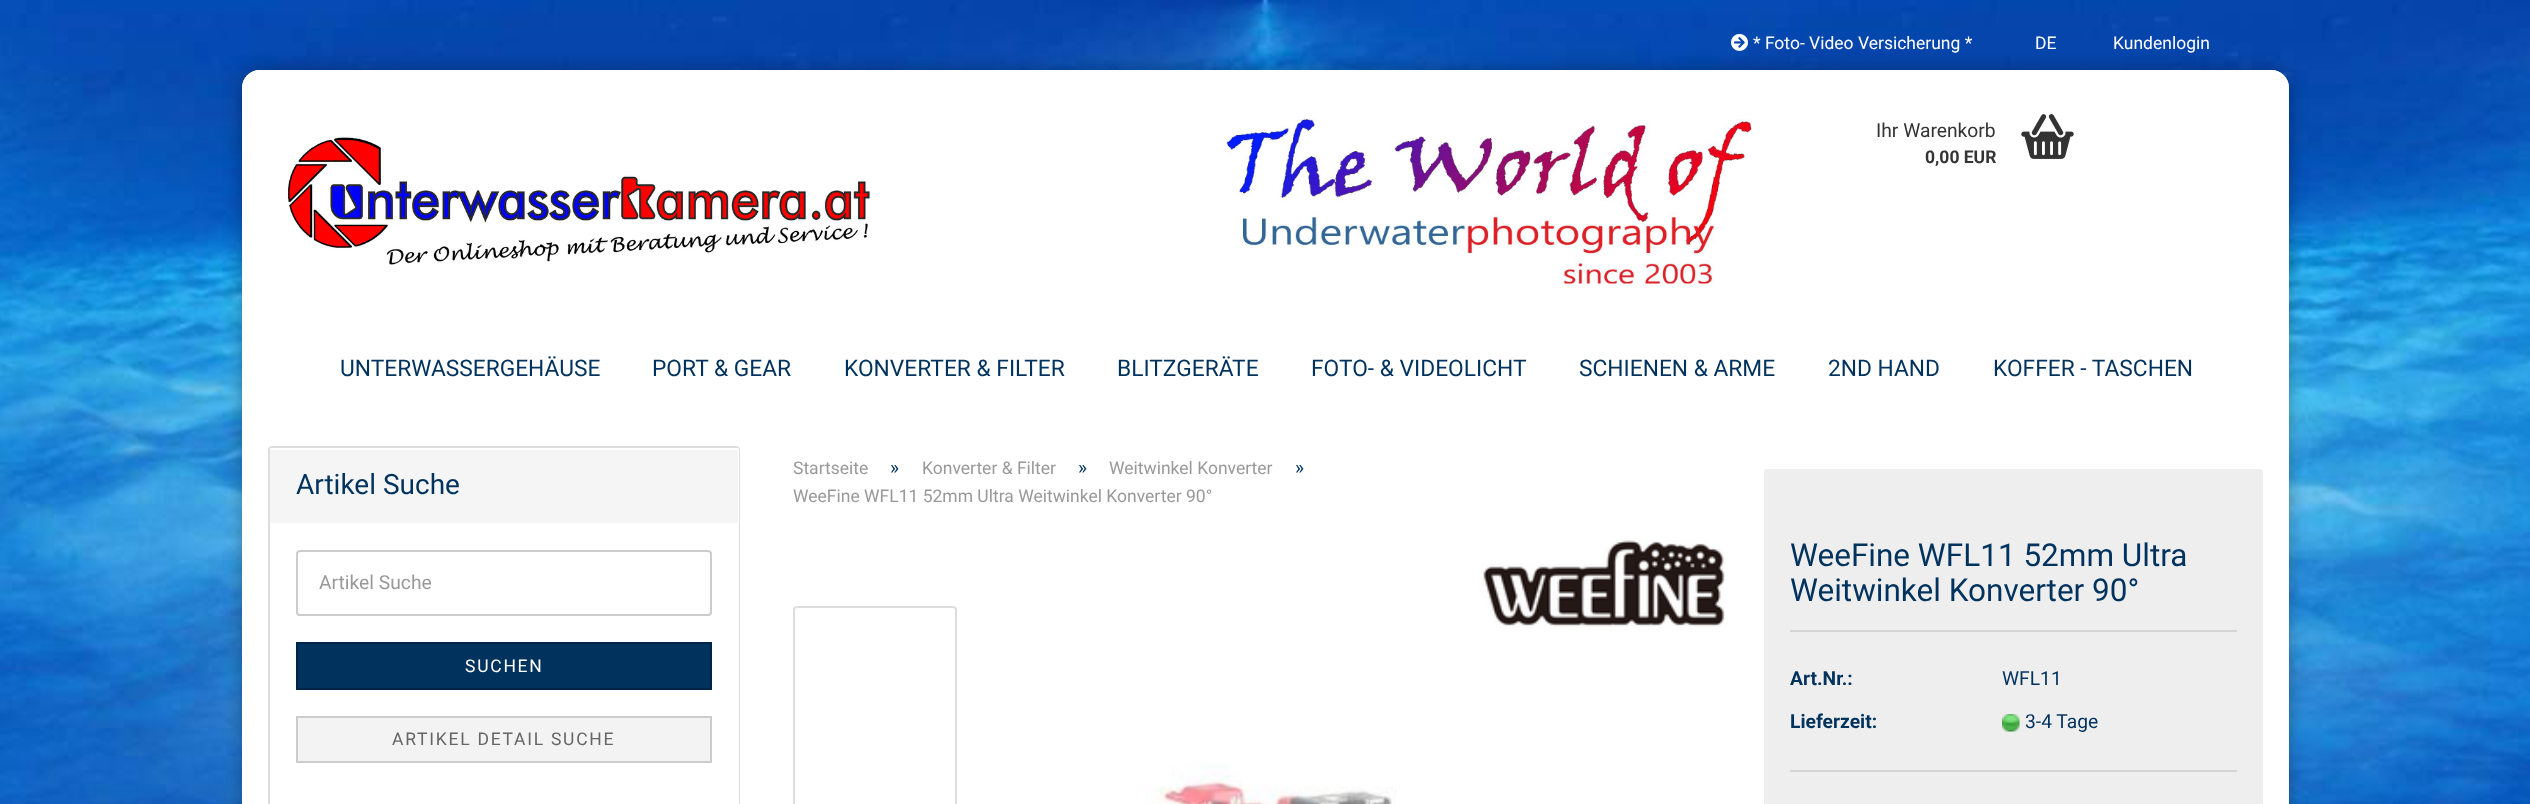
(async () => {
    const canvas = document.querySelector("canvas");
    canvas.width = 2530;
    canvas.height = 804;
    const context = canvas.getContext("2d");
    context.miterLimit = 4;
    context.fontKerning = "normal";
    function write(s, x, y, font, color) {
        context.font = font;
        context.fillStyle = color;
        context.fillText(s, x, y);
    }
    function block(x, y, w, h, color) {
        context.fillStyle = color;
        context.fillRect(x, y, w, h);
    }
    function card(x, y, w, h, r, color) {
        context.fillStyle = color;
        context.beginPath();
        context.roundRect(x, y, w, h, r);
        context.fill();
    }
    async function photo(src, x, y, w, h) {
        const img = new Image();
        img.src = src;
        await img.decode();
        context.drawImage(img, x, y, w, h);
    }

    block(0, 0, 2530, 804, "rgb(255, 255, 255)");
    await photo("media/1.png", 0, 0, 2530, 804);
    context.fillStyle = "rgba(0, 0, 0, 0.3)";
    context.filter = "blur(9px)";
    context.beginPath();
    context.roundRect(242, 70, 2047, 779, 18);
    context.fill();
    context.filter = "none";
    card(242, 70, 2047, 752, 18, "rgb(255, 255, 255)");
    context.beginPath();
    context.roundRect(242, 70, 2047, 350, [18, 18, 4, 4]);
    context.fill();
    await photo("media/2.png", 1731, 34, 17, 17);
    write("* Foto- Video Versicherung *", 1753, 49, "17.5px Roboto", "rgb(255, 255, 255)");
    write("DE", 2035, 49, "17.5px Roboto", "rgb(255, 255, 255)");
    write("Kundenlogin", 2113, 49, "17.5px Roboto", "rgb(255, 255, 255)");
    await photo("media/3.png", 288, 136, 582, 129);
    await photo("media/4.png", 1226, 119, 526, 165);
    write("Ihr Warenkorb", 1876, 137, "19.25px Roboto", "rgb(51, 51, 51)");
    write("0,00 EUR", 1925, 163, "bold 17.5px Roboto", "rgb(51, 51, 51)");
    await photo("media/5.png", 2021, 114, 53, 45);
    write("UNTERWASSERGEHÄUSE", 340, 376, "22.75px Roboto", "rgb(0, 50, 94)");
    write("PORT & GEAR", 652, 376, "22.75px Roboto", "rgb(0, 50, 94)");
    write("KONVERTER & FILTER", 844, 376, "22.75px Roboto", "rgb(0, 50, 94)");
    write("BLITZGERÄTE", 1117, 376, "22.75px Roboto", "rgb(0, 50, 94)");
    write("FOTO- & VIDEOLICHT", 1311, 376, "22.75px Roboto", "rgb(0, 50, 94)");
    write("SCHIENEN & ARME", 1579, 376, "22.75px Roboto", "rgb(0, 50, 94)");
    write("2ND HAND", 1828, 376, "22.75px Roboto", "rgb(0, 50, 94)");
    write("KOFFER - TASCHEN", 1993, 376, "22.75px Roboto", "rgb(0, 50, 94)");
    context.beginPath();
    context.roundRect(269, 447, 470, 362, 3);
    context.strokeStyle = "rgb(221, 221, 221)";
    context.lineWidth = 2;
    context.stroke();
    context.fillStyle = "rgb(245, 245, 245)";
    context.beginPath();
    context.roundRect(270, 448, 469, 75, [2, 2, 0, 0]);
    context.fill();
    context.fillStyle = "rgb(255, 255, 255)";
    context.beginPath();
    context.moveTo(271, 450);
    context.lineTo(737, 450);
    context.bezierCurveTo(738, 450, 738, 451, 738, 452);
    context.lineTo(738, 523);
    context.lineTo(739, 523);
    context.lineTo(739, 450);
    context.bezierCurveTo(739, 449, 738, 448, 737, 448);
    context.lineTo(272, 448);
    context.bezierCurveTo(271, 448, 270, 449, 270, 450);
    context.lineTo(270, 452);
    context.bezierCurveTo(270, 451, 270, 450, 271, 450);
    context.closePath();
    context.fill();
    write("Artikel Suche", 296, 494, "28px Roboto", "rgb(0, 50, 94)");
    block(738, 523, 1, 281, "rgb(255, 255, 255)");
    context.beginPath();
    context.roundRect(297, 551, 414, 64, 3);
    context.strokeStyle = "rgb(204, 204, 204)";
    context.stroke();
    write("Artikel Suche", 319, 589, "19.25px Roboto", "rgb(153, 153, 153)");
    context.fillStyle = "rgb(0, 50, 94)";
    context.beginPath();
    context.rect(297, 643, 414, 46);
    context.fill();
    context.strokeStyle = "rgb(0, 36, 69)";
    context.stroke();
    context.letterSpacing = "1.75px";
    write("SUCHEN", 465, 672, "17.5px Roboto", "rgb(255, 255, 255)");
    context.fillStyle = "rgb(243, 243, 243)";
    context.beginPath();
    context.rect(297, 717, 414, 45);
    context.fill();
    context.strokeStyle = "rgb(204, 204, 204)";
    context.stroke();
    write("ARTIKEL DETAIL SUCHE", 392, 745, "17.5px Roboto", "rgb(102, 102, 102)");
    context.letterSpacing = "0px";
    write("Startseite", 793, 474, "17.5px Roboto", "rgb(153, 153, 153)");
    write("»", 890, 474, "19.25px Roboto", "rgb(0, 50, 94)");
    write("Konverter & Filter", 922, 474, "17.5px Roboto", "rgb(153, 153, 153)");
    write("»", 1078, 474, "19.25px Roboto", "rgb(0, 50, 94)");
    write("Weitwinkel Konverter", 1109, 474, "17.5px Roboto", "rgb(153, 153, 153)");
    write("»", 1295, 474, "19.25px Roboto", "rgb(0, 50, 94)");
    write("WeeFine WFL11 52mm Ultra Weitwinkel Konverter 90°", 793, 502, "17.5px Roboto", "rgb(153, 153, 153)");
    await photo("media/6.png", 1481, 540, 244, 88);
    context.beginPath();
    context.roundRect(794, 607, 162, 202, 3);
    context.strokeStyle = "rgb(221, 221, 221)";
    context.stroke();
    await photo("media/7.png", 1145, 763, 252, 41);
    card(1764, 469, 499, 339, 4, "rgb(238, 238, 238)");
    block(1790, 630, 447, 2, "rgb(213, 213, 213)");
    write("WeeFine WFL11 52mm Ultra", 1790, 566, "31.5px Roboto", "rgb(0, 50, 94)");
    write("Weitwinkel Konverter 90°", 1790, 601, "31.5px Roboto", "rgb(0, 50, 94)");
    block(1790, 770, 447, 2, "rgb(213, 213, 213)");
    write("Art.Nr.:", 1790, 685, "bold 19.25px Roboto", "rgb(0, 50, 94)");
    write("WFL11", 2002, 685, "19.25px Roboto", "rgb(0, 50, 94)");
    write("Lieferzeit:", 1790, 728, "bold 19.25px Roboto", "rgb(0, 50, 94)");
    await photo("media/8.png", 2002, 714, 18, 18);
    write("3-4 Tage", 2025, 728, "19.25px Roboto", "rgb(0, 50, 94)");
})();
